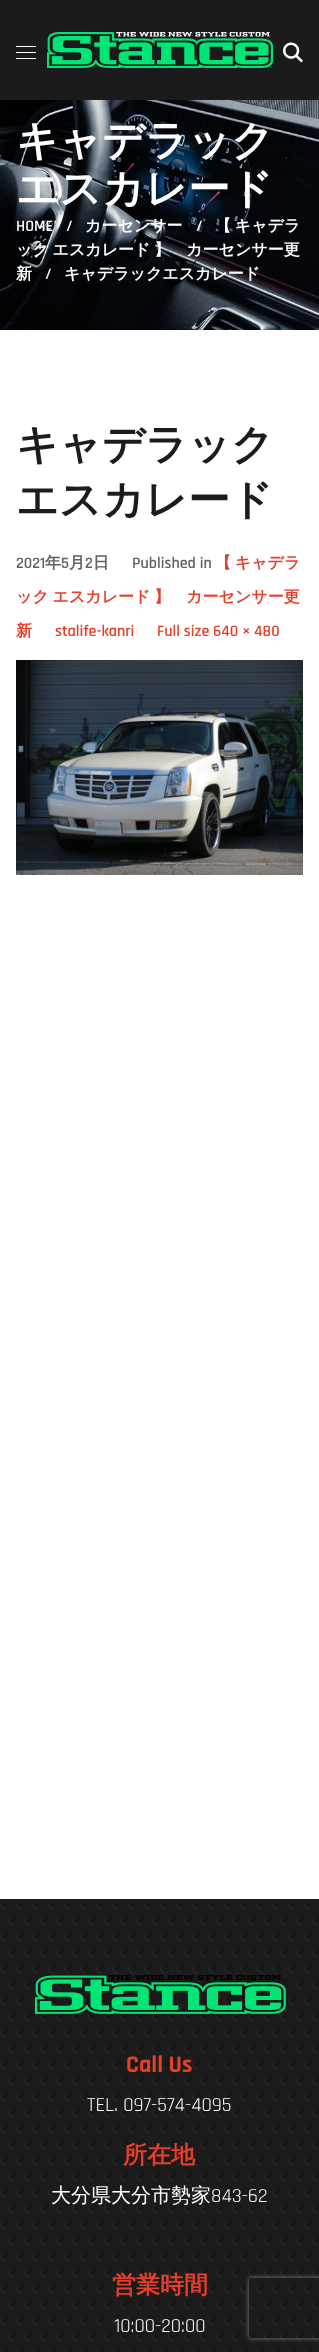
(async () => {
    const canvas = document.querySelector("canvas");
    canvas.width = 319;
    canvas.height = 2352;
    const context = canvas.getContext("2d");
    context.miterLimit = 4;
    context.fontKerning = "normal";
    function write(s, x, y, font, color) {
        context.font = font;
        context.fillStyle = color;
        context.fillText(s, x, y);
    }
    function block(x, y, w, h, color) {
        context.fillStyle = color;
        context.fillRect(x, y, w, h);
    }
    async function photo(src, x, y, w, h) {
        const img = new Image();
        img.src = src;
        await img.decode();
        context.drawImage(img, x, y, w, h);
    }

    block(0, 0, 319, 2352, "rgb(255, 255, 255)");
    block(0, 0, 319, 100, "rgb(27, 27, 27)");
    block(16, 46, 20, 1, "rgb(255, 255, 255)");
    block(16, 52, 20, 1, "rgb(255, 255, 255)");
    block(16, 58, 20, 1, "rgb(255, 255, 255)");
    await photo("media/1.png", 47, 32, 226, 36);
    await photo("media/2.png", 283, 42, 20, 21);
    await photo("media/3.png", 0, 100, 319, 230);
    write("キャデラック", 16, 155, "bold 42px WenQuanYi Zen Hei", "rgb(255, 255, 255)");
    write("エスカレード", 16, 203, "bold 42px WenQuanYi Zen Hei", "rgb(255, 255, 255)");
    write("HOME", 16, 231, "600 16px Rajdhani", "rgb(255, 255, 255)");
    write("/", 66, 231, "600 16px Rajdhani", "rgb(255, 255, 255)");
    write("カーセンサー", 85, 231, "bold 16px WenQuanYi Zen Hei", "rgb(255, 255, 255)");
    write("/", 196, 231, "600 16px Rajdhani", "rgb(255, 255, 255)");
    context.wordSpacing = "-1px";
    write("【 キャデラ", 215, 231, "bold 16px WenQuanYi Zen Hei", "rgb(255, 255, 255)");
    write("ック エスカレード 】　カーセンサー更", 16, 255, "bold 16px WenQuanYi Zen Hei", "rgb(255, 255, 255)");
    context.wordSpacing = "0px";
    write("新", 16, 279, "bold 16px WenQuanYi Zen Hei", "rgb(255, 255, 255)");
    write("/", 45, 279, "600 16px Rajdhani", "rgb(255, 255, 255)");
    write("キャデラックエスカレード", 64, 279, "bold 16px WenQuanYi Zen Hei", "rgb(255, 255, 255)");
    write("キャデラック", 16, 459, "bold 42px WenQuanYi Zen Hei", "rgb(28, 28, 28)");
    write("エスカレード", 16, 514, "bold 42px WenQuanYi Zen Hei", "rgb(28, 28, 28)");
    write("2021", 16, 568, "600 16px Rajdhani", "rgb(97, 97, 97)");
    write("年", 45, 568, "bold 16px WenQuanYi Zen Hei", "rgb(97, 97, 97)");
    write("5", 61, 568, "600 16px Rajdhani", "rgb(97, 97, 97)");
    write("月", 69, 568, "bold 16px WenQuanYi Zen Hei", "rgb(97, 97, 97)");
    write("2", 85, 568, "600 16px Rajdhani", "rgb(97, 97, 97)");
    write("日", 93, 568, "bold 16px WenQuanYi Zen Hei", "rgb(97, 97, 97)");
    write("Published in", 132, 568, "600 16px Rajdhani", "rgb(97, 97, 97)");
    context.wordSpacing = "-1px";
    write("【 キャデラ", 215, 568, "bold 16px WenQuanYi Zen Hei", "rgb(229, 62, 41)");
    write("ック エスカレード 】　カーセンサー更", 16, 602, "bold 16px WenQuanYi Zen Hei", "rgb(229, 62, 41)");
    context.wordSpacing = "0px";
    write("新", 16, 636, "bold 16px WenQuanYi Zen Hei", "rgb(229, 62, 41)");
    write("stalife-kanri", 55, 636, "600 16px Rajdhani", "rgb(229, 62, 41)");
    write("Full size 640 × 480", 157, 636, "600 16px Rajdhani", "rgb(229, 62, 41)");
    await photo("media/4.png", 16, 660, 287, 215);
    block(0, 1899, 319, 453, "rgb(28, 28, 28)");
    await photo("media/5.png", 0, 1902, 319, 450);
    await photo("media/6.png", 35, 1975, 251, 39);
    write("Call Us", 126, 2072, "bold 24px Rajdhani", "rgb(229, 62, 41)");
    write("TEL. 097-574-4095", 87, 2111, "20px Rajdhani", "rgb(255, 255, 255)");
    write("所在地", 123, 2163, "bold 24px WenQuanYi Zen Hei", "rgb(229, 62, 41)");
    write("大分県大分市勢家", 51, 2202, "500 20px WenQuanYi Zen Hei", "rgb(255, 255, 255)");
    write("843-62", 211, 2202, "20px Rajdhani", "rgb(255, 255, 255)");
    write("営業時間", 112, 2293, "bold 24px WenQuanYi Zen Hei", "rgb(229, 62, 41)");
    write("10:00-20:00", 114, 2332, "20px Rajdhani", "rgb(255, 255, 255)");
    context.save();
    context.beginPath();
    context.moveTo(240, 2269);
    context.lineTo(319, 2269);
    context.lineTo(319, 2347);
    context.lineTo(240, 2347);
    context.closePath();
    context.moveTo(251, 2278);
    context.lineTo(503, 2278);
    context.bezierCurveTo(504, 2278, 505, 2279, 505, 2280);
    context.lineTo(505, 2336);
    context.bezierCurveTo(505, 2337, 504, 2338, 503, 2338);
    context.lineTo(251, 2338);
    context.bezierCurveTo(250, 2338, 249, 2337, 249, 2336);
    context.lineTo(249, 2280);
    context.bezierCurveTo(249, 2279, 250, 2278, 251, 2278);
    context.closePath();
    context.clip("evenodd");
    context.fillStyle = "rgb(128, 128, 128)";
    context.filter = "blur(2.5px)";
    context.beginPath();
    context.roundRect(249, 2278, 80, 60, 2);
    context.fill();
    context.filter = "none";
    context.restore();
})();
